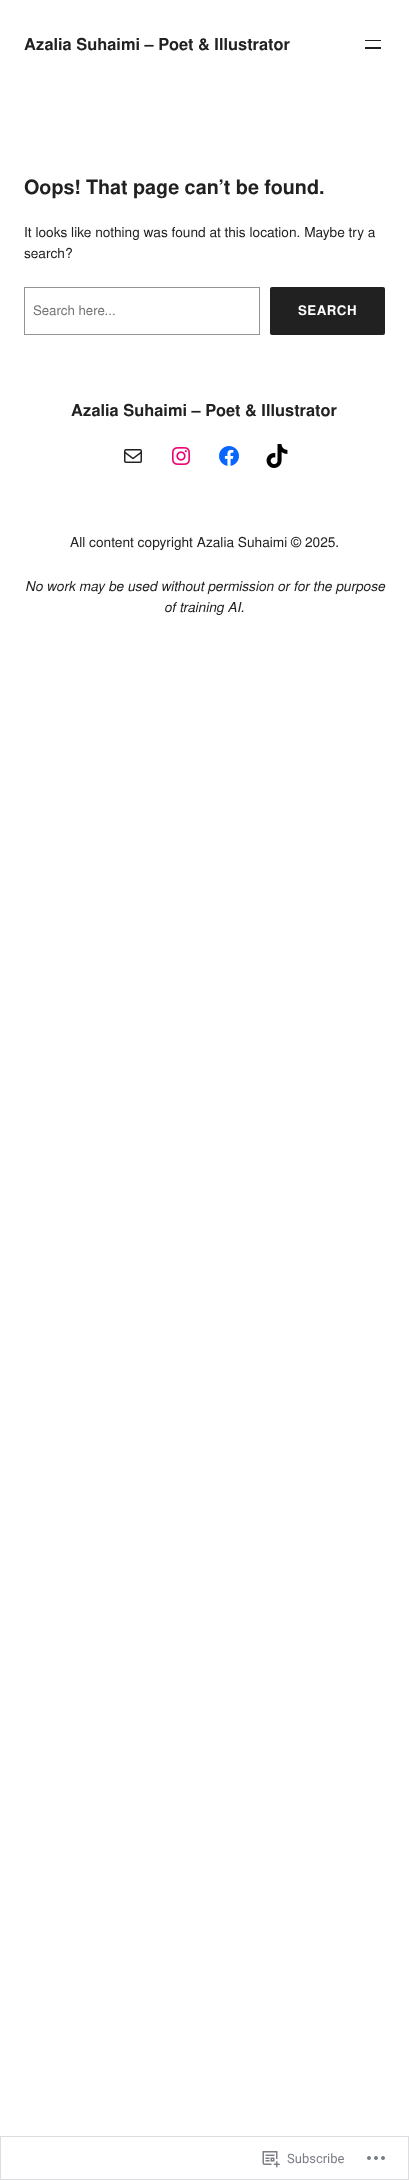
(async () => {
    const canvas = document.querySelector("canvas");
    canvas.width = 409;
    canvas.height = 2180;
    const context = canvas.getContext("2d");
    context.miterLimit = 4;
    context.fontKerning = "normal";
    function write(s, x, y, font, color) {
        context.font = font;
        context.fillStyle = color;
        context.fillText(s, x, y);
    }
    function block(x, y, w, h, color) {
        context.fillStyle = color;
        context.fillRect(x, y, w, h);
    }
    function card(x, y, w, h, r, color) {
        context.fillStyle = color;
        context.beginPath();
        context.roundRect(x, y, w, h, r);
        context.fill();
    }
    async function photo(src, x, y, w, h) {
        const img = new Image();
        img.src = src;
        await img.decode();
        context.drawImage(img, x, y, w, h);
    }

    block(0, 0, 409, 2180, "rgb(255, 255, 255)");
    write("Azalia Suhaimi – Poet & Illustrator", 24, 50, "bold 16.4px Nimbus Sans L", "rgb(33, 33, 33)");
    block(365, 40, 16, 1, "rgb(33, 33, 33)");
    block(365, 47, 16, 2, "rgb(33, 33, 33)");
    write("Oops! That page can’t be found.", 24, 194, "bold 19.75px Nimbus Sans L", "rgb(33, 33, 33)");
    write("It looks like nothing was found at this location. Maybe try a", 24, 237, "13.7px Nimbus Sans L", "rgb(33, 33, 33)");
    write("search?", 24, 258, "13.7px Nimbus Sans L", "rgb(33, 33, 33)");
    context.strokeStyle = "rgb(148, 148, 148)";
    context.strokeRect(24.5, 287.5, 235, 47);
    write("Search here...", 33, 315, "13.25px Nimbus Sans L", "rgb(117, 117, 117)");
    card(270, 287, 115, 48, 2, "rgb(33, 33, 33)");
    context.letterSpacing = "0.5px";
    write("SEARCH", 298, 315, "bold 13.25px Nimbus Sans L", "rgb(255, 255, 255)");
    context.letterSpacing = "0px";
    write("Azalia Suhaimi – Poet & Illustrator", 71, 416, "bold 16.4px Nimbus Sans L", "rgb(33, 33, 33)");
    await photo("media/1.png", 124, 449, 18, 14);
    await photo("media/2.png", 172, 447, 18, 18);
    await photo("media/3.png", 219, 446, 20, 20);
    await photo("media/4.png", 266, 444, 22, 24);
    write("All content copyright Azalia Suhaimi © 2025.", 70, 547, "13.7px Nimbus Sans L", "rgb(33, 33, 33)");
    write("No work may be used without permission or for the purpose", 25, 591, "italic 13.7px Nimbus Sans L", "rgb(33, 33, 33)");
    write("of training AI.", 164, 612, "italic 13.7px Nimbus Sans L", "rgb(33, 33, 33)");
    context.strokeStyle = "rgb(221, 221, 223)";
    context.strokeRect(0.5, 2136.5, 408, 43);
    await photo("media/5.png", 262, 2151, 18, 17);
    write("Subscribe", 287, 2163, "13px Roboto", "rgb(123, 127, 133)");
    await photo("media/6.png", 367, 2156, 18, 4);
})();
